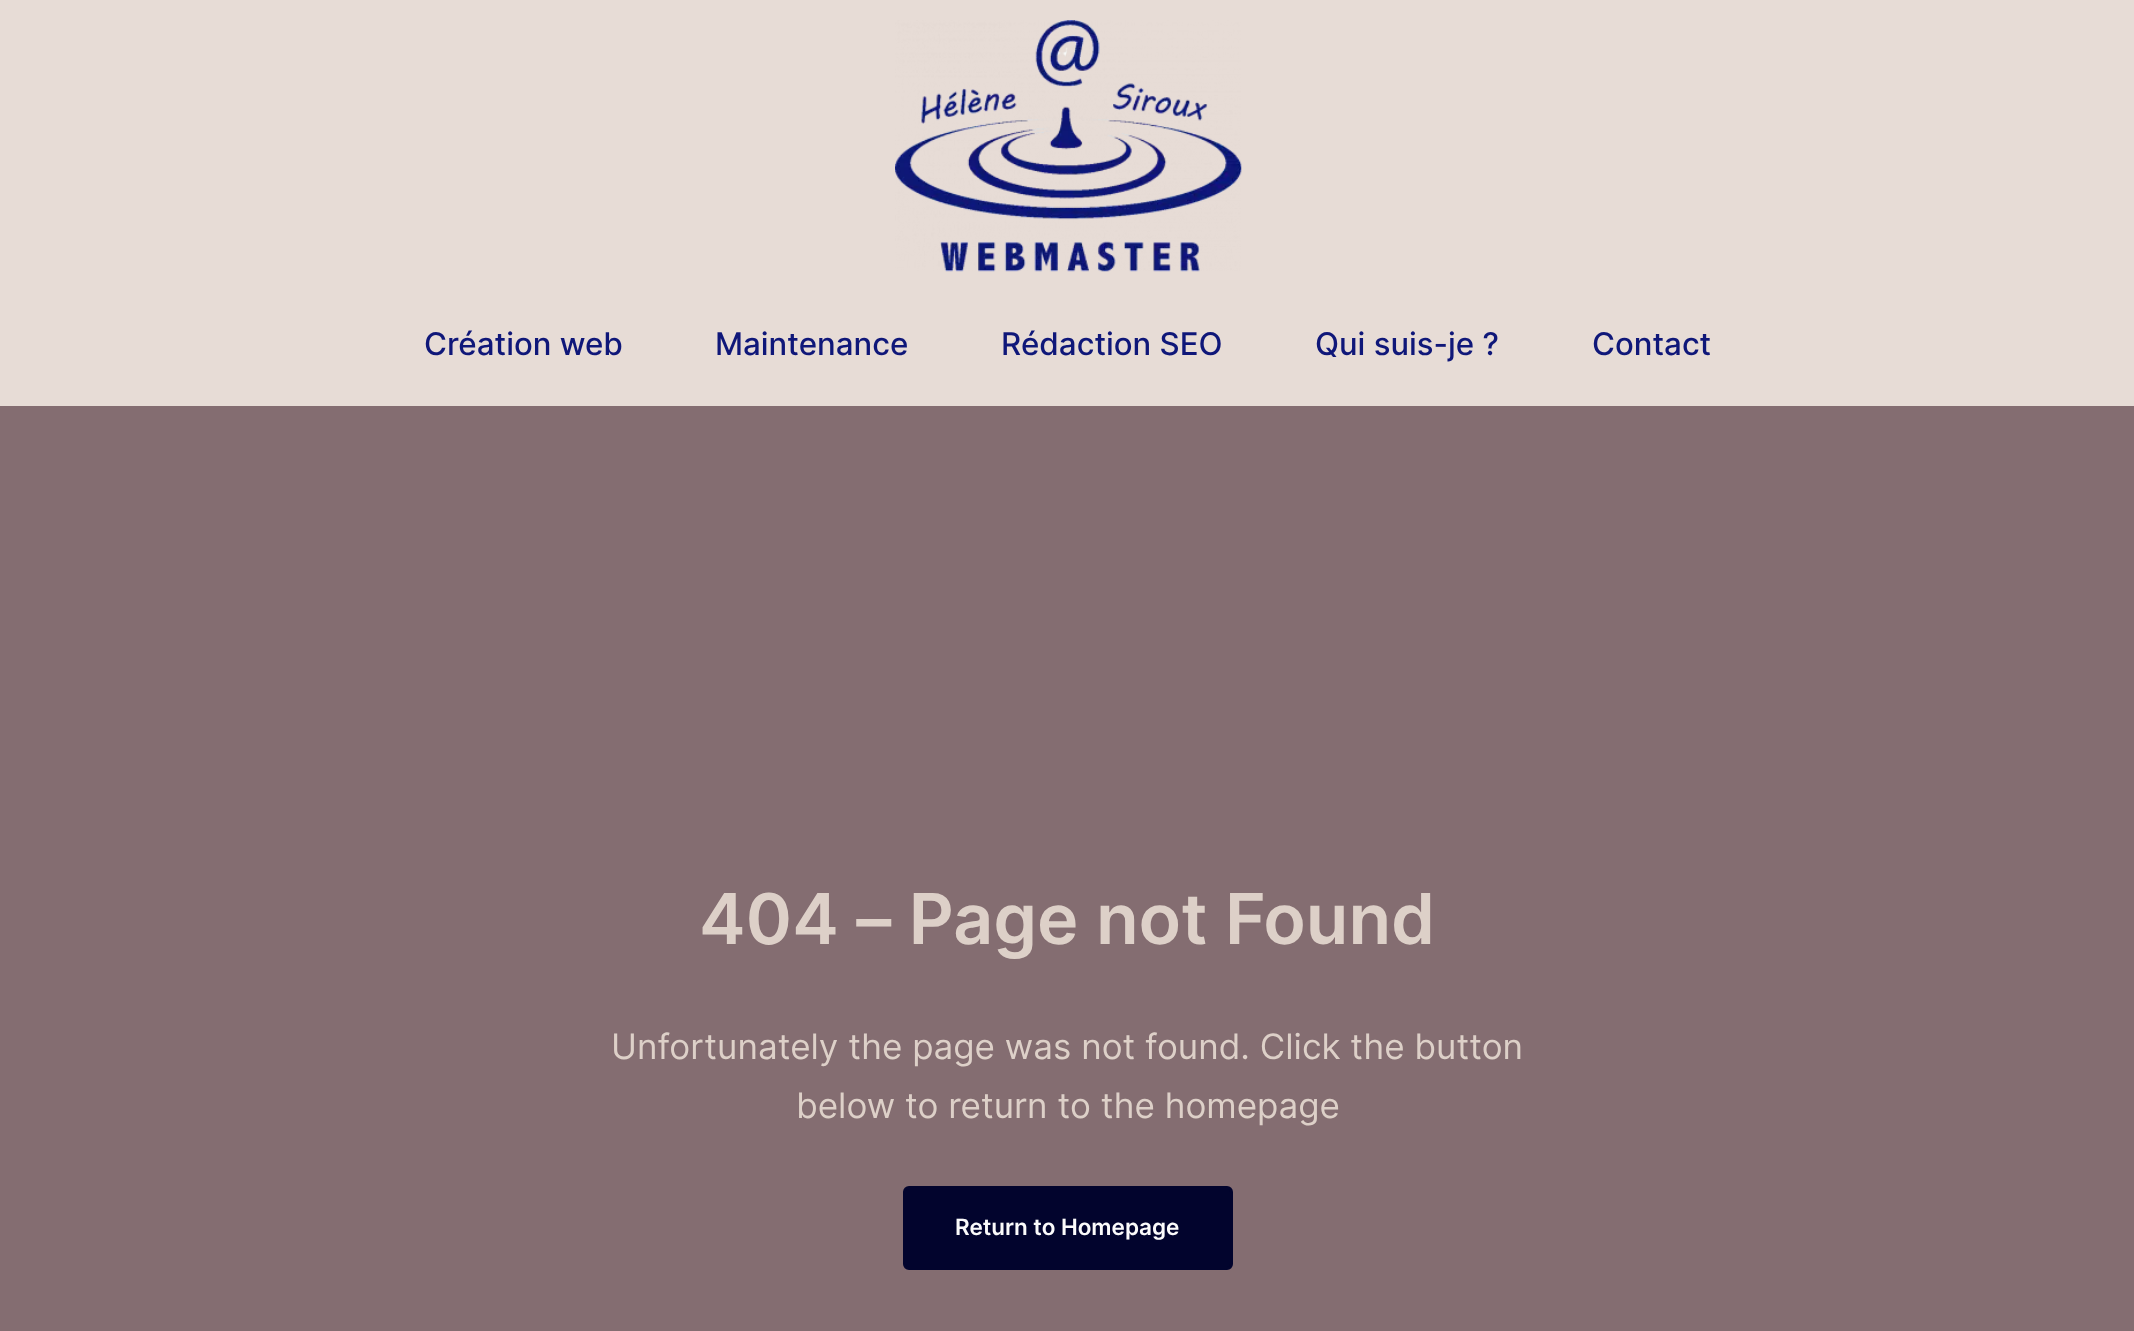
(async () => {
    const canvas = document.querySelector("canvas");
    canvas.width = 2134;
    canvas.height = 1331;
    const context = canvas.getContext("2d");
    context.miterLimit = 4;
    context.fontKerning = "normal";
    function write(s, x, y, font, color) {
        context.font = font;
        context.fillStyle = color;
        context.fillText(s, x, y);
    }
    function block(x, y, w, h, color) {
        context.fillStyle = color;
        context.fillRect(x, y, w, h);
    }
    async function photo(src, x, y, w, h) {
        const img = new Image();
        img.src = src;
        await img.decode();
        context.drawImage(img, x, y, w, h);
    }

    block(0, 0, 2134, 1331, "rgb(231, 220, 214)");
    await photo("media/1.png", 895, 20, 347, 252);
    write("Création web", 424, 355, "500 31.25px Inter", "rgb(15, 23, 121)");
    write("Maintenance", 715, 355, "500 31.25px Inter", "rgb(15, 23, 121)");
    write("Rédaction SEO", 1001, 355, "500 31.25px Inter", "rgb(15, 23, 121)");
    write("Qui suis-je ?", 1315, 355, "500 31.25px Inter", "rgb(15, 23, 121)");
    write("Contact", 1592, 355, "500 31.25px Inter", "rgb(15, 23, 121)");
    block(0, 406, 2134, 925, "rgb(132, 109, 113)");
    write("404 – Page not Found", 699, 944, "600 70px Inter", "rgb(221, 208, 200)");
    write("Unfortunately the page was not found. Click the button", 611, 1059, "35px Inter", "rgb(221, 208, 200)");
    write("below to return to the homepage", 796, 1118, "35px Inter", "rgb(221, 208, 200)");
    context.fillStyle = "rgb(2, 4, 45)";
    context.beginPath();
    context.roundRect(904.5, 1187.5, 327, 81, 4.5);
    context.fill();
    context.strokeStyle = "rgb(2, 4, 45)";
    context.lineWidth = 3;
    context.stroke();
    write("Return to Homepage", 955, 1235, "600 22.5px Inter", "rgb(251, 251, 251)");
})();
